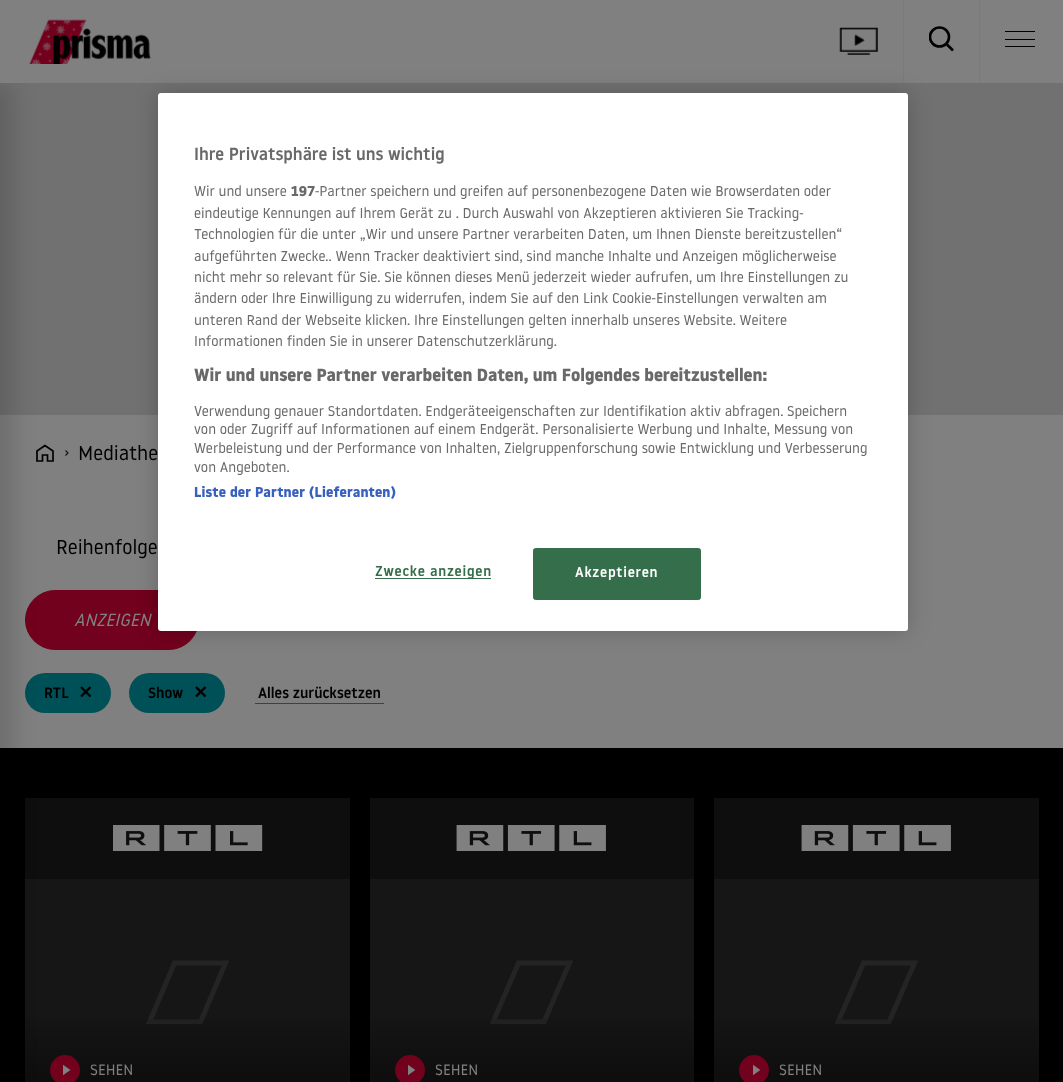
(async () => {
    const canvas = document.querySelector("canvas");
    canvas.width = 1063;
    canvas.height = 1082;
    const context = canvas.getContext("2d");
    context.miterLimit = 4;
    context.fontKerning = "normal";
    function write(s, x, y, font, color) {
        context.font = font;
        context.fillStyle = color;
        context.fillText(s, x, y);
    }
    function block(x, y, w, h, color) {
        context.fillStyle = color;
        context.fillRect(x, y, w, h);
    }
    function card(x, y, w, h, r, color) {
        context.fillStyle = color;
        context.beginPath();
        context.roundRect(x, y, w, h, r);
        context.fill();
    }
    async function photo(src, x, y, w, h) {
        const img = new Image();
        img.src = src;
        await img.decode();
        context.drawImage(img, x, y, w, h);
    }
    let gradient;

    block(0, 0, 1063, 1082, "rgb(113, 113, 113)");
    block(0, 415, 1063, 333, "rgb(128, 128, 128)");
    context.beginPath();
    context.moveTo(45, 445.5);
    context.lineTo(37, 451);
    context.lineTo(37, 461);
    context.lineTo(42.5, 461);
    context.lineTo(42.5, 455);
    context.lineTo(47.5, 455);
    context.lineTo(47.5, 461);
    context.lineTo(53, 461);
    context.lineTo(53, 451);
    context.closePath();
    context.strokeStyle = "rgb(0, 0, 0)";
    context.lineWidth = 1.7;
    context.stroke();
    context.fillStyle = "rgb(114, 1, 29)";
    context.beginPath();
    context.roundRect(25.5, 590.5, 173, 59, 29.5);
    context.fill();
    context.strokeStyle = "rgb(114, 1, 29)";
    context.lineWidth = 1;
    context.stroke();
    card(25, 673, 86, 40, 20, "rgb(0, 80, 87)");
    block(0, 748, 1063, 334, "rgb(0, 0, 0)");
    block(25, 798, 325, 81, "rgb(14, 14, 14)");
    block(25, 879, 325, 203, "rgb(22, 22, 22)");
    context.save();
    context.beginPath();
    context.rect(146, 960, 83, 64);
    context.clip();
    context.beginPath();
    context.moveTo(200.5, 1022);
    context.lineTo(149.5, 1022);
    context.lineTo(174.5, 963);
    context.lineTo(225.5, 963);
    context.closePath();
    context.strokeStyle = "rgb(36, 36, 36)";
    context.lineWidth = 5;
    context.stroke();
    context.restore();
    gradient = context.createLinearGradient(188, 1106, 188, 1004);
    gradient.addColorStop(0, "rgba(0, 0, 0, 0.5)");
    gradient.addColorStop(1, "rgba(0, 0, 0, 0)");
    context.fillStyle = gradient;
    context.fillRect(25, 1019, 325, 63);
    context.fillStyle = "rgb(114, 1, 29)";
    context.beginPath();
    context.arc(65, 1070, 15, 0, Math.PI * 2);
    context.fill();
    context.fillStyle = "rgba(0, 0, 0, 0.15)";
    context.filter = "blur(12.5px)";
    context.beginPath();
    context.rect(-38, 83, 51, 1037);
    context.fill();
    context.filter = "none";
    block(0, 0, 1063, 83, "rgb(128, 128, 128)");
    await photo("media/1.png", 29, 19, 122, 45);
    block(903, 0, 1, 83, "rgb(123, 123, 123)");
    context.fillStyle = "rgba(0, 0, 0, 0.2)";
    context.filter = "blur(11px)";
    context.beginPath();
    context.roundRect(158, 93, 750, 538, 3);
    context.fill();
    context.filter = "none";
    card(158, 93, 750, 538, 3, "rgb(255, 255, 255)");
    write("Ihre Privatsphäre ist uns wichtig", 194, 160, "500 17.5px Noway", "rgb(105, 105, 105)");
    write("Wir und unsere", 194, 196, "14.25px Noway", "rgb(105, 105, 105)");
    write("197", 291, 196, "bold 14.25px Noway", "rgb(105, 105, 105)");
    write("-Partner speichern und greifen auf personenbezogene Daten wie Browserdaten oder", 315, 196, "14.25px Noway", "rgb(105, 105, 105)");
    write("eindeutige Kennungen auf Ihrem Gerät zu . Durch Auswahl von Akzeptieren aktivieren Sie Tracking-", 194, 218, "14.25px Noway", "rgb(105, 105, 105)");
    write("Technologien für die unter „Wir und unsere Partner verarbeiten Daten, um Ihnen Dienste bereitzustellen“", 194, 239, "14.25px Noway", "rgb(105, 105, 105)");
    write("aufgeführten Zwecke.. Wenn Tracker deaktiviert sind, sind manche Inhalte und Anzeigen möglicherweise", 194, 261, "14.25px Noway", "rgb(105, 105, 105)");
    write("nicht mehr so relevant für Sie. Sie können dieses Menü jederzeit wieder aufrufen, um Ihre Einstellungen zu", 194, 282, "14.25px Noway", "rgb(105, 105, 105)");
    write("ändern oder Ihre Einwilligung zu widerrufen, indem Sie auf den Link Cookie-Einstellungen verwalten am", 194, 303, "14.25px Noway", "rgb(105, 105, 105)");
    write("unteren Rand der Webseite klicken. Ihre Einstellungen gelten innerhalb unseres Website. Weitere", 194, 325, "14.25px Noway", "rgb(105, 105, 105)");
    write("Informationen finden Sie in unserer Datenschutzerklärung.", 194, 346, "14.25px Noway", "rgb(105, 105, 105)");
    write("Wir und unsere Partner verarbeiten Daten, um Folgendes bereitzustellen:", 194, 381, "bold 17.5px Noway", "rgb(105, 105, 105)");
    write("Verwendung genauer Standortdaten. Endgeräteeigenschaften zur Identifikation aktiv abfragen. Speichern", 194, 416, "14.25px Noway", "rgb(105, 105, 105)");
    write("von oder Zugriff auf Informationen auf einem Endgerät. Personalisierte Werbung und Inhalte, Messung von", 194, 434, "14.25px Noway", "rgb(105, 105, 105)");
    write("Werbeleistung und der Performance von Inhalten, Zielgruppenforschung sowie Entwicklung und Verbesserung", 194, 453, "14.25px Noway", "rgb(105, 105, 105)");
    write("von Angeboten.", 194, 472, "14.25px Noway", "rgb(105, 105, 105)");
    context.letterSpacing = "0.15px";
    write("Liste der Partner (Lieferanten)", 194, 497, "bold 14.25px Noway", "rgb(56, 96, 190)");
    block(375, 578, 116, 1, "rgb(52, 110, 74)");
    context.letterSpacing = "0.75px";
    write("Zwecke anzeigen", 375, 576, "500 14.25px Noway", "rgb(52, 110, 74)");
    context.beginPath();
    context.roundRect(533.5, 548.5, 167, 51, 2);
    context.fill();
    context.strokeStyle = "rgb(52, 110, 74)";
    context.stroke();
    write("Akzeptieren", 575, 577, "500 14.25px Noway", "rgb(255, 255, 255)");
    await photo("media/2.png", 839, 27, 39, 28);
    block(979, 0, 1, 83, "rgb(123, 123, 123)");
    context.save();
    context.beginPath();
    context.rect(929, 26, 25, 25);
    context.clip();
    context.beginPath();
    context.arc(939.5, 37, 9.5, 0, Math.PI * 2);
    context.strokeStyle = "rgb(0, 0, 0)";
    context.lineWidth = 2.6;
    context.stroke();
    context.restore();
    context.beginPath();
    context.moveTo(946.5, 44);
    context.lineTo(953, 50.5);
    context.strokeStyle = "rgb(0, 0, 0)";
    context.lineWidth = 2.6;
    context.stroke();
    block(1005, 39, 30, 1, "rgb(0, 0, 0)");
    block(1005, 31, 30, 1, "rgb(0, 0, 0)");
    block(1005, 46, 30, 1, "rgb(0, 0, 0)");
    context.beginPath();
    context.moveTo(65.5, 455.5);
    context.lineTo(68, 453);
    context.lineTo(65.5, 450.5);
    context.strokeStyle = "rgb(16, 16, 16)";
    context.lineWidth = 1.1;
    context.stroke();
    context.letterSpacing = "0px";
    write("Mediathe", 78, 460, "20px Noway", "rgb(0, 0, 0)");
    write("Reihenfolge", 56, 554, "20px Noway", "rgb(0, 0, 0)");
    write("ANZEIGEN", 74, 626, "italic 17.5px Noway", "rgb(128, 128, 128)");
    write("RTL", 44, 698, "500 15px Noway", "rgb(0, 0, 0)");
    context.beginPath();
    context.moveTo(81, 696.5);
    context.lineTo(90.5, 687);
    context.moveTo(81, 687);
    context.lineTo(90.5, 696.5);
    context.strokeStyle = "rgb(0, 0, 0)";
    context.lineWidth = 2.4;
    context.stroke();
    card(129, 673, 96, 40, 20, "rgb(0, 80, 87)");
    write("Show", 148, 698, "500 15px Noway", "rgb(0, 0, 0)");
    context.beginPath();
    context.moveTo(196, 696.5);
    context.lineTo(205.5, 687);
    context.moveTo(196, 687);
    context.lineTo(205.5, 696.5);
    context.stroke();
    block(255, 703, 129, 1, "rgb(64, 64, 64)");
    write("Alles zurücksetzen", 258, 698, "500 15px Noway", "rgb(0, 0, 0)");
    await photo("media/3.png", 113, 825, 150, 26);
    context.save();
    context.beginPath();
    context.rect(63, 1064, 8, 12);
    context.clip();
    context.fillStyle = "rgb(128, 128, 128)";
    context.beginPath();
    context.moveTo(70.5, 1070);
    context.lineTo(62, 1064);
    context.lineTo(62, 1076);
    context.closePath();
    context.fill();
    context.restore();
    write("SEHEN", 90, 1075, "15px Noway", "rgb(128, 128, 128)");
    block(370, 798, 324, 81, "rgb(14, 14, 14)");
    await photo("media/4.png", 456, 825, 150, 26);
    block(370, 879, 324, 203, "rgb(22, 22, 22)");
    context.save();
    context.beginPath();
    context.rect(490, 960, 84, 64);
    context.clip();
    context.beginPath();
    context.moveTo(544, 1022);
    context.lineTo(493, 1022);
    context.lineTo(518.5, 963);
    context.lineTo(569.5, 963);
    context.closePath();
    context.strokeStyle = "rgb(36, 36, 36)";
    context.lineWidth = 5;
    context.stroke();
    context.restore();
    gradient = context.createLinearGradient(532, 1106, 532, 1004);
    gradient.addColorStop(0, "rgba(0, 0, 0, 0.5)");
    gradient.addColorStop(1, "rgba(0, 0, 0, 0)");
    context.fillStyle = gradient;
    context.fillRect(370, 1019, 324, 63);
    context.fillStyle = "rgb(114, 1, 29)";
    context.beginPath();
    context.arc(410, 1070, 15, 0, Math.PI * 2);
    context.fill();
    context.save();
    context.beginPath();
    context.rect(408, 1064, 7, 12);
    context.clip();
    context.fillStyle = "rgb(128, 128, 128)";
    context.beginPath();
    context.moveTo(415.5, 1070);
    context.lineTo(407, 1064);
    context.lineTo(407, 1076);
    context.closePath();
    context.fill();
    context.restore();
    write("SEHEN", 435, 1075, "15px Noway", "rgb(128, 128, 128)");
    block(714, 798, 325, 81, "rgb(14, 14, 14)");
    await photo("media/4.png", 801, 825, 150, 26);
    block(714, 879, 325, 203, "rgb(22, 22, 22)");
    context.save();
    context.beginPath();
    context.rect(835, 960, 84, 64);
    context.clip();
    context.beginPath();
    context.moveTo(889, 1022);
    context.lineTo(838, 1022);
    context.lineTo(863.5, 963);
    context.lineTo(914.5, 963);
    context.closePath();
    context.strokeStyle = "rgb(36, 36, 36)";
    context.lineWidth = 5;
    context.stroke();
    context.restore();
    gradient = context.createLinearGradient(876, 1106, 876, 1004);
    gradient.addColorStop(0, "rgba(0, 0, 0, 0.5)");
    gradient.addColorStop(1, "rgba(0, 0, 0, 0)");
    context.fillStyle = gradient;
    context.fillRect(714, 1019, 325, 63);
    context.fillStyle = "rgb(114, 1, 29)";
    context.beginPath();
    context.arc(754, 1070, 15, 0, Math.PI * 2);
    context.fill();
    context.save();
    context.beginPath();
    context.rect(753, 1064, 7, 12);
    context.clip();
    context.fillStyle = "rgb(128, 128, 128)";
    context.beginPath();
    context.moveTo(760.5, 1070);
    context.lineTo(752, 1064);
    context.lineTo(752, 1076);
    context.closePath();
    context.fill();
    context.restore();
    write("SEHEN", 779, 1075, "15px Noway", "rgb(128, 128, 128)");
})();
